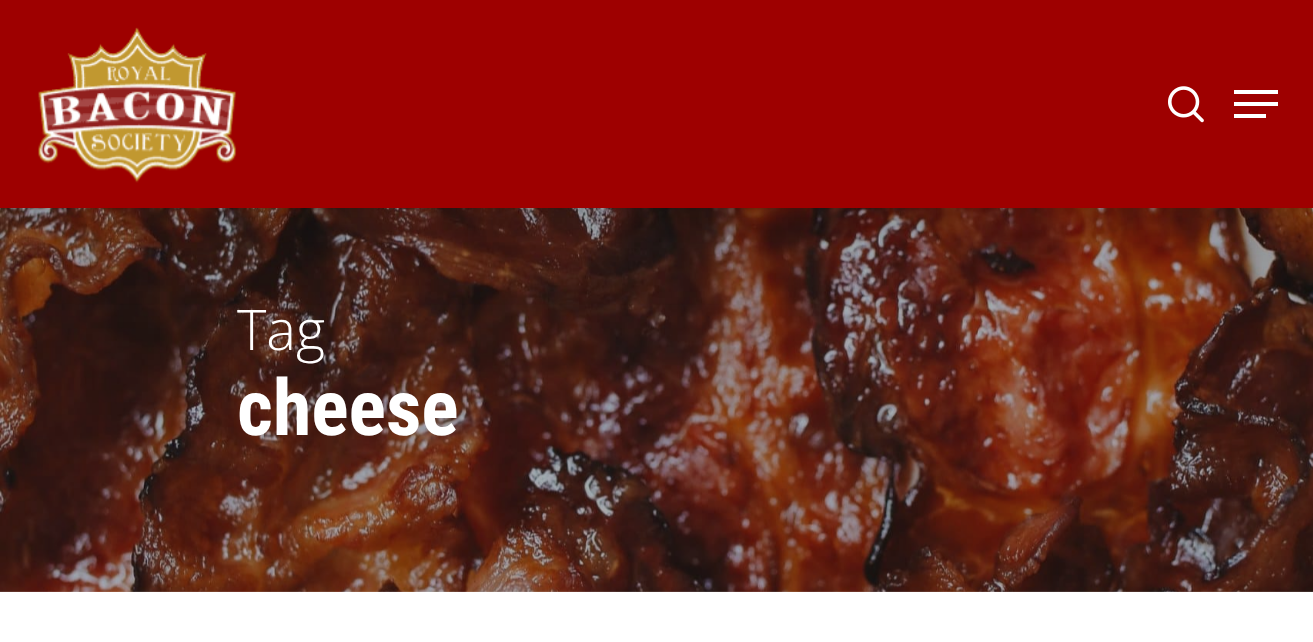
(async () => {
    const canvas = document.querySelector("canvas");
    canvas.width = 1313;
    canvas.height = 642;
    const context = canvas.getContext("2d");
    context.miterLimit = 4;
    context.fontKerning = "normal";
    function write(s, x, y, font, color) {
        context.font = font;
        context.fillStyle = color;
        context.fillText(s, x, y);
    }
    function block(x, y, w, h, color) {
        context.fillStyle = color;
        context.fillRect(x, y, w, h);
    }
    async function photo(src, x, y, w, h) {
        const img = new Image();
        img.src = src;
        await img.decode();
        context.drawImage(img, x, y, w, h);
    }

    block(0, 0, 1313, 642, "rgb(255, 255, 255)");
    await photo("media/3.png", 0, 208, 1313, 384);
    context.fillStyle = "rgba(0, 0, 0, 0.15)";
    context.filter = "blur(45px)";
    context.beginPath();
    context.rect(0, 6, 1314, 208);
    context.fill();
    context.filter = "none";
    block(0, 0, 1313, 208, "rgb(158, 0, 0)");
    await photo("media/1.png", 37, 27, 200, 156);
    await photo("media/2.png", 1168, 86, 36, 37);
    block(1234, 90, 44, 4, "rgb(255, 255, 255)");
    block(1234, 114, 32, 4, "rgb(255, 255, 255)");
    block(1234, 102, 44, 4, "rgb(255, 255, 255)");
    write("Tag", 237, 350, "300 56px Open Sans", "rgb(255, 255, 255)");
    write("cheese", 237, 435, "bold 78px Roboto Condensed", "rgb(255, 255, 255)");
})();
